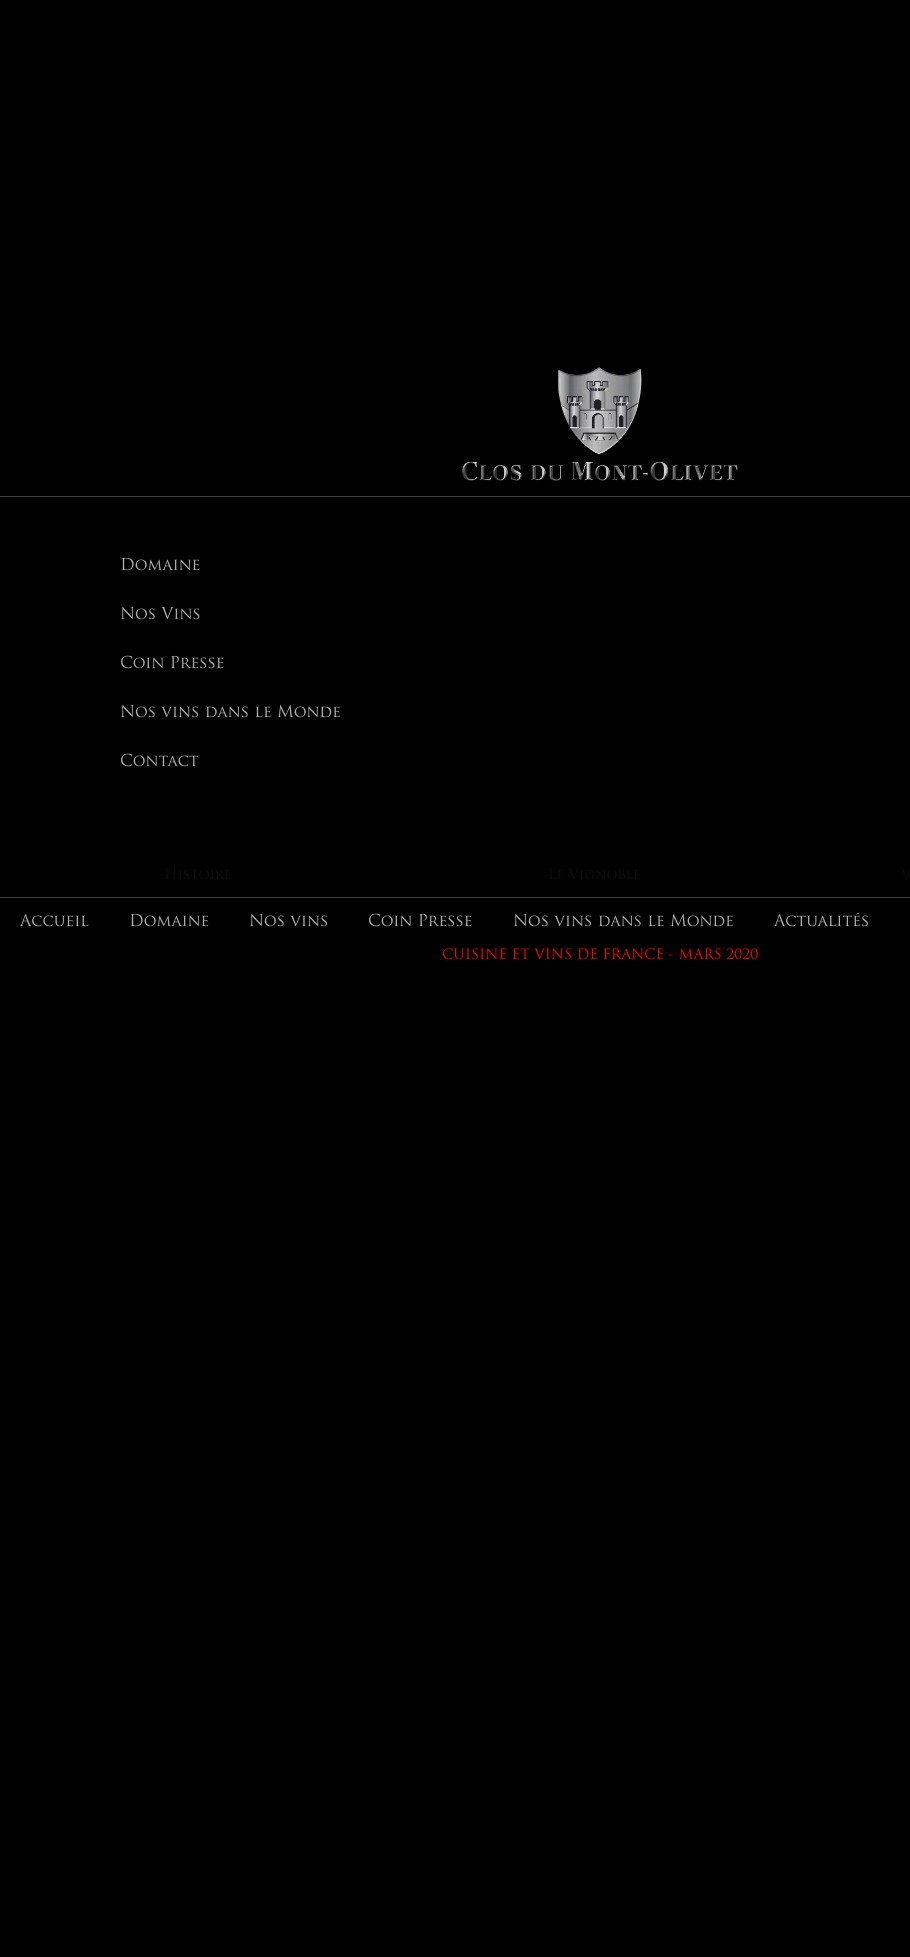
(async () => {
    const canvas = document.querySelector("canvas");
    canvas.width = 910;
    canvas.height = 1957;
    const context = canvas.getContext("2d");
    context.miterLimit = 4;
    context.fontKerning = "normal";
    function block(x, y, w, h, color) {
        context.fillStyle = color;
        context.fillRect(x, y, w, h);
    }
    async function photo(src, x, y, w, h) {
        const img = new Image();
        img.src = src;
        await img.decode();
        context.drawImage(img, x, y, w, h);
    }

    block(0, 0, 910, 1957, "rgb(0, 0, 0)");
    await photo("media/1.png", 462, 367, 276, 114);
    block(0, 496, 910, 1, "rgb(62, 61, 64)");
    block(0, 897, 910, 1, "rgb(62, 61, 64)");
    await photo("media/2.png", 121, 557, 79, 14);
    await photo("media/3.png", 121, 606, 79, 14);
    await photo("media/4.png", 121, 655, 103, 14);
    await photo("media/5.png", 121, 704, 219, 14);
    await photo("media/6.png", 121, 753, 78, 14);
    await photo("media/7.png", 166, 868, 65, 11);
    await photo("media/8.png", 550, 868, 90, 11);
    await photo("media/9.png", 901, 868, 9, 11);
    await photo("media/10.png", 19, 913, 70, 14);
    await photo("media/2.png", 130, 913, 79, 14);
    await photo("media/11.png", 250, 913, 77, 14);
    await photo("media/4.png", 369, 913, 103, 14);
    await photo("media/5.png", 514, 913, 219, 14);
    await photo("media/12.png", 773, 912, 95, 15);
    await photo("media/13.png", 442, 948, 316, 12);
})();
